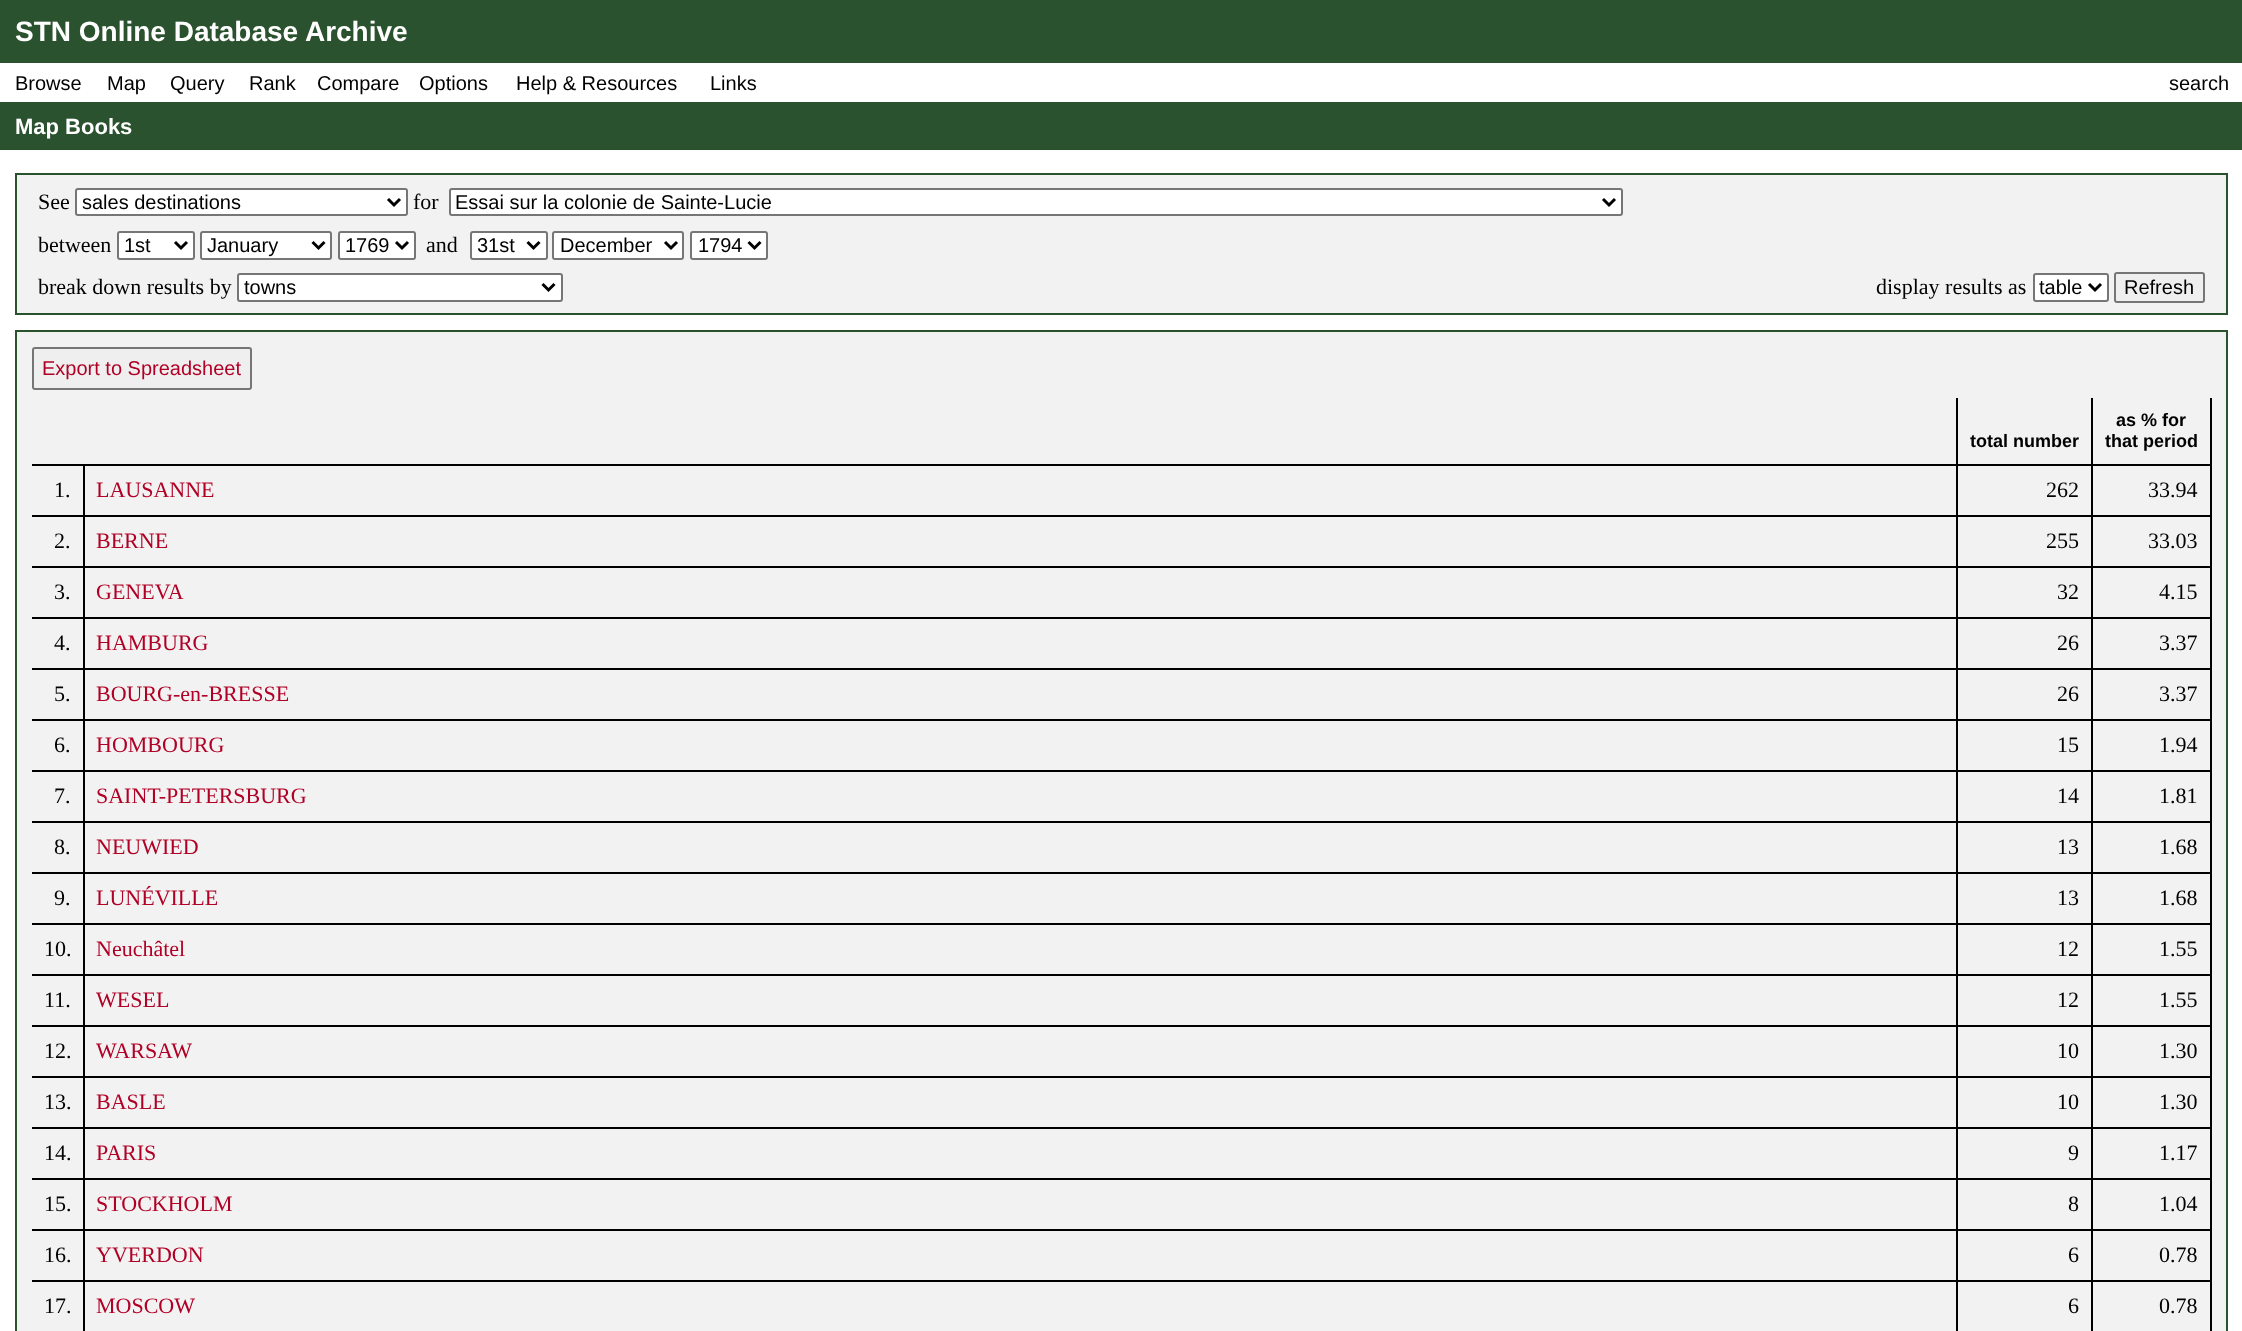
(async () => {
    const canvas = document.querySelector("canvas");
    canvas.width = 2242;
    canvas.height = 1331;
    const context = canvas.getContext("2d");
    context.miterLimit = 4;
    context.fontKerning = "normal";
    function write(s, x, y, font, color) {
        context.font = font;
        context.fillStyle = color;
        context.fillText(s, x, y);
    }
    function block(x, y, w, h, color) {
        context.fillStyle = color;
        context.fillRect(x, y, w, h);
    }

    block(0, 0, 2242, 1331, "rgb(255, 255, 255)");
    block(0, 0, 2242, 63, "rgb(43, 82, 46)");
    write("STN Online Database Archive", 15, 41, "bold 28px Liberation Sans", "rgb(255, 255, 255)");
    write("Browse", 15, 90, "20px Liberation Sans", "rgb(0, 0, 0)");
    write("Map", 107, 90, "20px Liberation Sans", "rgb(0, 0, 0)");
    write("Query", 170, 90, "20px Liberation Sans", "rgb(0, 0, 0)");
    write("Rank", 249, 90, "20px Liberation Sans", "rgb(0, 0, 0)");
    write("Compare", 317, 90, "20px Liberation Sans", "rgb(0, 0, 0)");
    write("Options", 419, 90, "20px Liberation Sans", "rgb(0, 0, 0)");
    write("Help & Resources", 516, 90, "20px Liberation Sans", "rgb(0, 0, 0)");
    write("Links", 710, 90, "20px Liberation Sans", "rgb(0, 0, 0)");
    write("search", 2169, 90, "20px Liberation Sans", "rgb(0, 0, 0)");
    block(0, 102, 2242, 48, "rgb(43, 82, 46)");
    write("Map Books", 15, 134, "bold 22px Liberation Sans", "rgb(255, 255, 255)");
    context.fillStyle = "rgb(242, 242, 242)";
    context.beginPath();
    context.rect(16, 174, 2211, 140);
    context.fill();
    context.strokeStyle = "rgb(43, 82, 46)";
    context.lineWidth = 2;
    context.stroke();
    write("See", 38, 209, "22px Liberation Serif", "rgb(0, 0, 0)");
    context.fillStyle = "rgb(255, 255, 255)";
    context.beginPath();
    context.roundRect(76, 189, 331, 26, 2);
    context.fill();
    context.strokeStyle = "rgb(118, 118, 118)";
    context.stroke();
    context.beginPath();
    context.moveTo(388, 199);
    context.lineTo(394, 205);
    context.lineTo(400, 199);
    context.strokeStyle = "rgb(0, 0, 0)";
    context.lineWidth = 3;
    context.stroke();
    write("sales destinations", 82, 209, "20px Liberation Sans", "rgb(0, 0, 0)");
    write("for", 413, 209, "22px Liberation Serif", "rgb(0, 0, 0)");
    context.fillStyle = "rgb(255, 255, 255)";
    context.beginPath();
    context.roundRect(450, 189, 1172, 26, 2);
    context.fill();
    context.strokeStyle = "rgb(118, 118, 118)";
    context.lineWidth = 2;
    context.stroke();
    context.beginPath();
    context.moveTo(1603, 199);
    context.lineTo(1609, 205);
    context.lineTo(1615, 199);
    context.strokeStyle = "rgb(0, 0, 0)";
    context.lineWidth = 3;
    context.stroke();
    write("Essai sur la colonie de Sainte-Lucie", 455, 209, "20px Liberation Sans", "rgb(0, 0, 0)");
    write("between", 38, 252, "22px Liberation Serif", "rgb(0, 0, 0)");
    context.fillStyle = "rgb(255, 255, 255)";
    context.beginPath();
    context.roundRect(118, 232, 76, 27, 2);
    context.fill();
    context.strokeStyle = "rgb(118, 118, 118)";
    context.lineWidth = 2;
    context.stroke();
    context.beginPath();
    context.moveTo(175, 242);
    context.lineTo(181, 248);
    context.lineTo(187, 242);
    context.strokeStyle = "rgb(0, 0, 0)";
    context.lineWidth = 3;
    context.stroke();
    write("1st", 124, 252, "20px Liberation Sans", "rgb(0, 0, 0)");
    context.fillStyle = "rgb(255, 255, 255)";
    context.beginPath();
    context.roundRect(201, 232, 130, 27, 2);
    context.fill();
    context.strokeStyle = "rgb(118, 118, 118)";
    context.lineWidth = 2;
    context.stroke();
    context.beginPath();
    context.moveTo(312.5, 242);
    context.lineTo(318.5, 248);
    context.lineTo(324.5, 242);
    context.strokeStyle = "rgb(0, 0, 0)";
    context.lineWidth = 3;
    context.stroke();
    write("January", 207, 252, "20px Liberation Sans", "rgb(0, 0, 0)");
    context.fillStyle = "rgb(255, 255, 255)";
    context.beginPath();
    context.roundRect(339, 232, 76, 27, 2);
    context.fill();
    context.strokeStyle = "rgb(118, 118, 118)";
    context.lineWidth = 2;
    context.stroke();
    context.beginPath();
    context.moveTo(396, 242);
    context.lineTo(402, 248);
    context.lineTo(408, 242);
    context.strokeStyle = "rgb(0, 0, 0)";
    context.lineWidth = 3;
    context.stroke();
    write("1769", 345, 252, "20px Liberation Sans", "rgb(0, 0, 0)");
    write("and", 426, 252, "22px Liberation Serif", "rgb(0, 0, 0)");
    context.fillStyle = "rgb(255, 255, 255)";
    context.beginPath();
    context.roundRect(471, 232, 76, 27, 2);
    context.fill();
    context.strokeStyle = "rgb(118, 118, 118)";
    context.lineWidth = 2;
    context.stroke();
    context.beginPath();
    context.moveTo(527.5, 242);
    context.lineTo(533.5, 248);
    context.lineTo(539.5, 242);
    context.strokeStyle = "rgb(0, 0, 0)";
    context.lineWidth = 3;
    context.stroke();
    write("31st", 477, 252, "20px Liberation Sans", "rgb(0, 0, 0)");
    context.fillStyle = "rgb(255, 255, 255)";
    context.beginPath();
    context.roundRect(553, 232, 130, 27, 2);
    context.fill();
    context.strokeStyle = "rgb(118, 118, 118)";
    context.lineWidth = 2;
    context.stroke();
    context.beginPath();
    context.moveTo(665, 242);
    context.lineTo(671, 248);
    context.lineTo(677, 242);
    context.strokeStyle = "rgb(0, 0, 0)";
    context.lineWidth = 3;
    context.stroke();
    write("December", 560, 252, "20px Liberation Sans", "rgb(0, 0, 0)");
    context.fillStyle = "rgb(255, 255, 255)";
    context.beginPath();
    context.roundRect(691, 232, 76, 27, 2);
    context.fill();
    context.strokeStyle = "rgb(118, 118, 118)";
    context.lineWidth = 2;
    context.stroke();
    context.beginPath();
    context.moveTo(748.5, 242);
    context.lineTo(754.5, 248);
    context.lineTo(760.5, 242);
    context.strokeStyle = "rgb(0, 0, 0)";
    context.lineWidth = 3;
    context.stroke();
    write("1794", 698, 252, "20px Liberation Sans", "rgb(0, 0, 0)");
    write("break down results by", 38, 294, "22px Liberation Serif", "rgb(0, 0, 0)");
    context.fillStyle = "rgb(255, 255, 255)";
    context.beginPath();
    context.roundRect(238, 274, 324, 27, 2);
    context.fill();
    context.strokeStyle = "rgb(118, 118, 118)";
    context.lineWidth = 2;
    context.stroke();
    context.beginPath();
    context.moveTo(542.5, 284);
    context.lineTo(548.5, 290);
    context.lineTo(554.5, 284);
    context.strokeStyle = "rgb(0, 0, 0)";
    context.lineWidth = 3;
    context.stroke();
    write("towns", 244, 294, "20px Liberation Sans", "rgb(0, 0, 0)");
    write("display results as", 1876, 294, "22px Liberation Serif", "rgb(0, 0, 0)");
    context.fillStyle = "rgb(255, 255, 255)";
    context.beginPath();
    context.roundRect(2034, 274, 74, 27, 2);
    context.fill();
    context.strokeStyle = "rgb(118, 118, 118)";
    context.lineWidth = 2;
    context.stroke();
    context.beginPath();
    context.moveTo(2089, 284);
    context.lineTo(2095, 290);
    context.lineTo(2101, 284);
    context.strokeStyle = "rgb(0, 0, 0)";
    context.lineWidth = 3;
    context.stroke();
    write("table", 2039, 294, "20px Liberation Sans", "rgb(0, 0, 0)");
    context.fillStyle = "rgb(239, 239, 239)";
    context.beginPath();
    context.roundRect(2115, 273, 89, 29, 2);
    context.fill();
    context.strokeStyle = "rgb(118, 118, 118)";
    context.lineWidth = 2;
    context.stroke();
    write("Refresh", 2124, 294, "20px Liberation Sans", "rgb(0, 0, 0)");
    context.fillStyle = "rgb(242, 242, 242)";
    context.beginPath();
    context.rect(16, 331, 2211, 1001);
    context.fill();
    context.strokeStyle = "rgb(43, 82, 46)";
    context.stroke();
    context.fillStyle = "rgb(239, 239, 239)";
    context.beginPath();
    context.roundRect(33, 348, 218, 41, 2);
    context.fill();
    context.strokeStyle = "rgb(118, 118, 118)";
    context.stroke();
    write("Export to Spreadsheet", 42, 375, "20px Liberation Sans", "rgb(177, 0, 38)");
    block(2091, 1280, 2, 51, "rgb(0, 0, 0)");
    block(2210, 398, 2, 933, "rgb(0, 0, 0)");
    block(2091, 1280, 120, 2, "rgb(0, 0, 0)");
    block(2091, 1229, 2, 52, "rgb(0, 0, 0)");
    block(2091, 1229, 120, 2, "rgb(0, 0, 0)");
    block(2091, 1178, 2, 52, "rgb(0, 0, 0)");
    block(2091, 1178, 120, 2, "rgb(0, 0, 0)");
    block(2091, 1127, 2, 52, "rgb(0, 0, 0)");
    block(2091, 1127, 120, 2, "rgb(0, 0, 0)");
    block(2091, 1076, 2, 52, "rgb(0, 0, 0)");
    block(2091, 1076, 120, 2, "rgb(0, 0, 0)");
    block(2091, 1025, 2, 52, "rgb(0, 0, 0)");
    block(2091, 1025, 120, 2, "rgb(0, 0, 0)");
    block(2091, 974, 2, 52, "rgb(0, 0, 0)");
    block(2091, 974, 120, 2, "rgb(0, 0, 0)");
    block(2091, 923, 2, 52, "rgb(0, 0, 0)");
    block(2091, 923, 120, 2, "rgb(0, 0, 0)");
    block(2091, 872, 2, 52, "rgb(0, 0, 0)");
    block(2091, 872, 120, 2, "rgb(0, 0, 0)");
    block(2091, 821, 2, 52, "rgb(0, 0, 0)");
    block(2091, 821, 120, 2, "rgb(0, 0, 0)");
    block(2091, 770, 2, 52, "rgb(0, 0, 0)");
    block(2091, 770, 120, 2, "rgb(0, 0, 0)");
    block(2091, 719, 2, 52, "rgb(0, 0, 0)");
    block(2091, 719, 120, 2, "rgb(0, 0, 0)");
    block(2091, 668, 2, 52, "rgb(0, 0, 0)");
    block(2091, 668, 120, 2, "rgb(0, 0, 0)");
    block(2091, 617, 2, 52, "rgb(0, 0, 0)");
    block(2091, 617, 120, 2, "rgb(0, 0, 0)");
    block(2091, 566, 2, 52, "rgb(0, 0, 0)");
    block(2091, 566, 120, 2, "rgb(0, 0, 0)");
    block(2091, 515, 2, 52, "rgb(0, 0, 0)");
    block(2091, 515, 120, 2, "rgb(0, 0, 0)");
    block(2091, 464, 2, 52, "rgb(0, 0, 0)");
    block(2091, 464, 120, 2, "rgb(0, 0, 0)");
    block(2091, 398, 2, 67, "rgb(0, 0, 0)");
    block(1956, 1280, 2, 51, "rgb(0, 0, 0)");
    block(1956, 1280, 137, 2, "rgb(0, 0, 0)");
    block(1956, 1229, 2, 52, "rgb(0, 0, 0)");
    block(1956, 1229, 137, 2, "rgb(0, 0, 0)");
    block(1956, 1178, 2, 52, "rgb(0, 0, 0)");
    block(1956, 1178, 137, 2, "rgb(0, 0, 0)");
    block(1956, 1127, 2, 52, "rgb(0, 0, 0)");
    block(1956, 1127, 137, 2, "rgb(0, 0, 0)");
    block(1956, 1076, 2, 52, "rgb(0, 0, 0)");
    block(1956, 1076, 137, 2, "rgb(0, 0, 0)");
    block(1956, 1025, 2, 52, "rgb(0, 0, 0)");
    block(1956, 1025, 137, 2, "rgb(0, 0, 0)");
    block(1956, 974, 2, 52, "rgb(0, 0, 0)");
    block(1956, 974, 137, 2, "rgb(0, 0, 0)");
    block(1956, 923, 2, 52, "rgb(0, 0, 0)");
    block(1956, 923, 137, 2, "rgb(0, 0, 0)");
    block(1956, 872, 2, 52, "rgb(0, 0, 0)");
    block(1956, 872, 137, 2, "rgb(0, 0, 0)");
    block(1956, 821, 2, 52, "rgb(0, 0, 0)");
    block(1956, 821, 137, 2, "rgb(0, 0, 0)");
    block(1956, 770, 2, 52, "rgb(0, 0, 0)");
    block(1956, 770, 137, 2, "rgb(0, 0, 0)");
    block(1956, 719, 2, 52, "rgb(0, 0, 0)");
    block(1956, 719, 137, 2, "rgb(0, 0, 0)");
    block(1956, 668, 2, 52, "rgb(0, 0, 0)");
    block(1956, 668, 137, 2, "rgb(0, 0, 0)");
    block(1956, 617, 2, 52, "rgb(0, 0, 0)");
    block(1956, 617, 137, 2, "rgb(0, 0, 0)");
    block(1956, 566, 2, 52, "rgb(0, 0, 0)");
    block(1956, 566, 137, 2, "rgb(0, 0, 0)");
    block(1956, 515, 2, 52, "rgb(0, 0, 0)");
    block(1956, 515, 137, 2, "rgb(0, 0, 0)");
    block(1956, 464, 2, 52, "rgb(0, 0, 0)");
    block(1956, 464, 137, 2, "rgb(0, 0, 0)");
    block(1956, 398, 2, 67, "rgb(0, 0, 0)");
    block(83, 1280, 2, 51, "rgb(0, 0, 0)");
    block(83, 1280, 1875, 2, "rgb(0, 0, 0)");
    block(83, 1229, 2, 52, "rgb(0, 0, 0)");
    block(83, 1229, 1875, 2, "rgb(0, 0, 0)");
    block(83, 1178, 2, 52, "rgb(0, 0, 0)");
    block(83, 1178, 1875, 2, "rgb(0, 0, 0)");
    block(83, 1127, 2, 52, "rgb(0, 0, 0)");
    block(83, 1127, 1875, 2, "rgb(0, 0, 0)");
    block(83, 1076, 2, 52, "rgb(0, 0, 0)");
    block(83, 1076, 1875, 2, "rgb(0, 0, 0)");
    block(83, 1025, 2, 52, "rgb(0, 0, 0)");
    block(83, 1025, 1875, 2, "rgb(0, 0, 0)");
    block(83, 974, 2, 52, "rgb(0, 0, 0)");
    block(83, 974, 1875, 2, "rgb(0, 0, 0)");
    block(83, 923, 2, 52, "rgb(0, 0, 0)");
    block(83, 923, 1875, 2, "rgb(0, 0, 0)");
    block(83, 872, 2, 52, "rgb(0, 0, 0)");
    block(83, 872, 1875, 2, "rgb(0, 0, 0)");
    block(83, 821, 2, 52, "rgb(0, 0, 0)");
    block(83, 821, 1875, 2, "rgb(0, 0, 0)");
    block(83, 770, 2, 52, "rgb(0, 0, 0)");
    block(83, 770, 1875, 2, "rgb(0, 0, 0)");
    block(83, 719, 2, 52, "rgb(0, 0, 0)");
    block(83, 719, 1875, 2, "rgb(0, 0, 0)");
    block(83, 668, 2, 52, "rgb(0, 0, 0)");
    block(83, 668, 1875, 2, "rgb(0, 0, 0)");
    block(83, 617, 2, 52, "rgb(0, 0, 0)");
    block(83, 617, 1875, 2, "rgb(0, 0, 0)");
    block(83, 566, 2, 52, "rgb(0, 0, 0)");
    block(83, 566, 1875, 2, "rgb(0, 0, 0)");
    block(83, 515, 2, 52, "rgb(0, 0, 0)");
    block(83, 515, 1875, 2, "rgb(0, 0, 0)");
    block(83, 464, 2, 52, "rgb(0, 0, 0)");
    block(32, 464, 1926, 2, "rgb(0, 0, 0)");
    write("total number", 1970, 447, "bold 18px Liberation Sans", "rgb(0, 0, 0)");
    write("as % for", 2116, 426, "bold 18px Liberation Sans", "rgb(0, 0, 0)");
    write("that period", 2105, 447, "bold 18px Liberation Sans", "rgb(0, 0, 0)");
    block(32, 515, 52, 2, "rgb(0, 0, 0)");
    write("1.", 54, 497, "22px Liberation Serif", "rgb(0, 0, 0)");
    write("LAUSANNE", 96, 497, "22px Liberation Serif", "rgb(177, 0, 38)");
    write("262", 2046, 497, "22px Liberation Serif", "rgb(0, 0, 0)");
    write("33.94", 2148, 497, "22px Liberation Serif", "rgb(0, 0, 0)");
    block(32, 566, 52, 2, "rgb(0, 0, 0)");
    write("2.", 54, 548, "22px Liberation Serif", "rgb(0, 0, 0)");
    write("BERNE", 96, 548, "22px Liberation Serif", "rgb(177, 0, 38)");
    write("255", 2046, 548, "22px Liberation Serif", "rgb(0, 0, 0)");
    write("33.03", 2148, 548, "22px Liberation Serif", "rgb(0, 0, 0)");
    block(32, 617, 52, 2, "rgb(0, 0, 0)");
    write("3.", 54, 599, "22px Liberation Serif", "rgb(0, 0, 0)");
    write("GENEVA", 96, 599, "22px Liberation Serif", "rgb(177, 0, 38)");
    write("32", 2057, 599, "22px Liberation Serif", "rgb(0, 0, 0)");
    write("4.15", 2159, 599, "22px Liberation Serif", "rgb(0, 0, 0)");
    block(32, 668, 52, 2, "rgb(0, 0, 0)");
    write("4.", 54, 650, "22px Liberation Serif", "rgb(0, 0, 0)");
    write("HAMBURG", 96, 650, "22px Liberation Serif", "rgb(177, 0, 38)");
    write("26", 2057, 650, "22px Liberation Serif", "rgb(0, 0, 0)");
    write("3.37", 2159, 650, "22px Liberation Serif", "rgb(0, 0, 0)");
    block(32, 719, 52, 2, "rgb(0, 0, 0)");
    write("5.", 54, 701, "22px Liberation Serif", "rgb(0, 0, 0)");
    write("BOURG-en-BRESSE", 96, 701, "22px Liberation Serif", "rgb(177, 0, 38)");
    write("26", 2057, 701, "22px Liberation Serif", "rgb(0, 0, 0)");
    write("3.37", 2159, 701, "22px Liberation Serif", "rgb(0, 0, 0)");
    block(32, 770, 52, 2, "rgb(0, 0, 0)");
    write("6.", 54, 752, "22px Liberation Serif", "rgb(0, 0, 0)");
    write("HOMBOURG", 96, 752, "22px Liberation Serif", "rgb(177, 0, 38)");
    write("15", 2057, 752, "22px Liberation Serif", "rgb(0, 0, 0)");
    write("1.94", 2159, 752, "22px Liberation Serif", "rgb(0, 0, 0)");
    block(32, 821, 52, 2, "rgb(0, 0, 0)");
    write("7.", 54, 803, "22px Liberation Serif", "rgb(0, 0, 0)");
    write("SAINT-PETERSBURG", 96, 803, "22px Liberation Serif", "rgb(177, 0, 38)");
    write("14", 2057, 803, "22px Liberation Serif", "rgb(0, 0, 0)");
    write("1.81", 2159, 803, "22px Liberation Serif", "rgb(0, 0, 0)");
    block(32, 872, 52, 2, "rgb(0, 0, 0)");
    write("8.", 54, 854, "22px Liberation Serif", "rgb(0, 0, 0)");
    write("NEUWIED", 96, 854, "22px Liberation Serif", "rgb(177, 0, 38)");
    write("13", 2057, 854, "22px Liberation Serif", "rgb(0, 0, 0)");
    write("1.68", 2159, 854, "22px Liberation Serif", "rgb(0, 0, 0)");
    block(32, 923, 52, 2, "rgb(0, 0, 0)");
    write("9.", 54, 905, "22px Liberation Serif", "rgb(0, 0, 0)");
    write("LUNÉVILLE", 96, 905, "22px Liberation Serif", "rgb(177, 0, 38)");
    write("13", 2057, 905, "22px Liberation Serif", "rgb(0, 0, 0)");
    write("1.68", 2159, 905, "22px Liberation Serif", "rgb(0, 0, 0)");
    block(32, 974, 52, 2, "rgb(0, 0, 0)");
    write("10.", 44, 956, "22px Liberation Serif", "rgb(0, 0, 0)");
    write("Neuchâtel", 96, 956, "22px Liberation Serif", "rgb(177, 0, 38)");
    write("12", 2057, 956, "22px Liberation Serif", "rgb(0, 0, 0)");
    write("1.55", 2159, 956, "22px Liberation Serif", "rgb(0, 0, 0)");
    block(32, 1025, 52, 2, "rgb(0, 0, 0)");
    write("11.", 44, 1007, "22px Liberation Serif", "rgb(0, 0, 0)");
    write("WESEL", 96, 1007, "22px Liberation Serif", "rgb(177, 0, 38)");
    write("12", 2057, 1007, "22px Liberation Serif", "rgb(0, 0, 0)");
    write("1.55", 2159, 1007, "22px Liberation Serif", "rgb(0, 0, 0)");
    block(32, 1076, 52, 2, "rgb(0, 0, 0)");
    write("12.", 44, 1058, "22px Liberation Serif", "rgb(0, 0, 0)");
    write("WARSAW", 96, 1058, "22px Liberation Serif", "rgb(177, 0, 38)");
    write("10", 2057, 1058, "22px Liberation Serif", "rgb(0, 0, 0)");
    write("1.30", 2159, 1058, "22px Liberation Serif", "rgb(0, 0, 0)");
    block(32, 1127, 52, 2, "rgb(0, 0, 0)");
    write("13.", 44, 1109, "22px Liberation Serif", "rgb(0, 0, 0)");
    write("BASLE", 96, 1109, "22px Liberation Serif", "rgb(177, 0, 38)");
    write("10", 2057, 1109, "22px Liberation Serif", "rgb(0, 0, 0)");
    write("1.30", 2159, 1109, "22px Liberation Serif", "rgb(0, 0, 0)");
    block(32, 1178, 52, 2, "rgb(0, 0, 0)");
    write("14.", 44, 1160, "22px Liberation Serif", "rgb(0, 0, 0)");
    write("PARIS", 96, 1160, "22px Liberation Serif", "rgb(177, 0, 38)");
    write("9", 2068, 1160, "22px Liberation Serif", "rgb(0, 0, 0)");
    write("1.17", 2159, 1160, "22px Liberation Serif", "rgb(0, 0, 0)");
    block(32, 1229, 52, 2, "rgb(0, 0, 0)");
    write("15.", 44, 1211, "22px Liberation Serif", "rgb(0, 0, 0)");
    write("STOCKHOLM", 96, 1211, "22px Liberation Serif", "rgb(177, 0, 38)");
    write("8", 2068, 1211, "22px Liberation Serif", "rgb(0, 0, 0)");
    write("1.04", 2159, 1211, "22px Liberation Serif", "rgb(0, 0, 0)");
    block(32, 1280, 52, 2, "rgb(0, 0, 0)");
    write("16.", 44, 1262, "22px Liberation Serif", "rgb(0, 0, 0)");
    write("YVERDON", 96, 1262, "22px Liberation Serif", "rgb(177, 0, 38)");
    write("6", 2068, 1262, "22px Liberation Serif", "rgb(0, 0, 0)");
    write("0.78", 2159, 1262, "22px Liberation Serif", "rgb(0, 0, 0)");
    write("17.", 44, 1313, "22px Liberation Serif", "rgb(0, 0, 0)");
    write("MOSCOW", 96, 1313, "22px Liberation Serif", "rgb(177, 0, 38)");
    write("6", 2068, 1313, "22px Liberation Serif", "rgb(0, 0, 0)");
    write("0.78", 2159, 1313, "22px Liberation Serif", "rgb(0, 0, 0)");
})();
